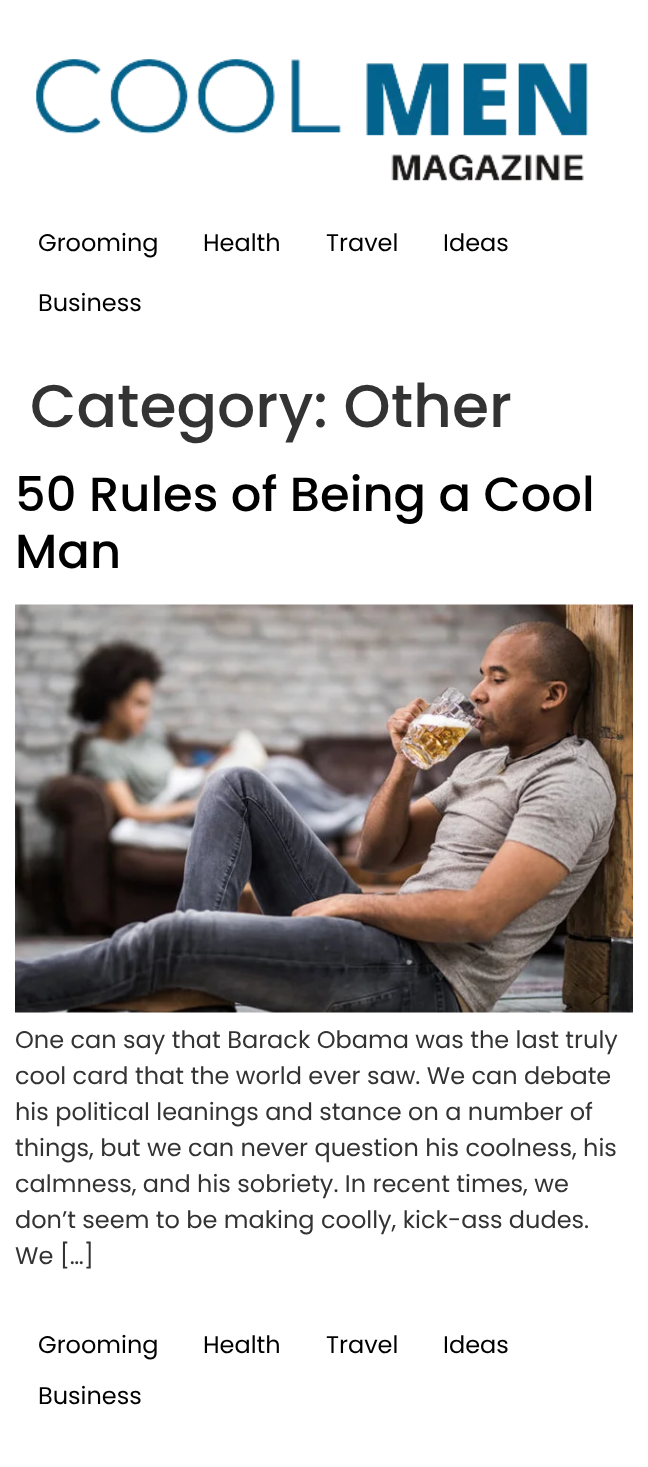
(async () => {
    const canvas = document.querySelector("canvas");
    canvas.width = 648;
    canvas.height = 1467;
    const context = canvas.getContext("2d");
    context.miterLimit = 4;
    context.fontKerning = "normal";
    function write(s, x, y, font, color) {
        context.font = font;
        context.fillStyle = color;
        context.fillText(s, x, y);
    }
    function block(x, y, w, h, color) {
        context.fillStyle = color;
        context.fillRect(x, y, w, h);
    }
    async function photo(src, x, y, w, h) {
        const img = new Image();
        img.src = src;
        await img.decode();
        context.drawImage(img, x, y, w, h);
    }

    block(0, 0, 648, 1467, "rgb(255, 255, 255)");
    await photo("media/1.png", 34, 59, 555, 123);
    write("Grooming", 38, 251, "24px Poppins", "rgb(0, 0, 0)");
    write("Health", 203, 251, "24px Poppins", "rgb(0, 0, 0)");
    write("Travel", 326, 251, "24px Poppins", "rgb(0, 0, 0)");
    write("Ideas", 443, 251, "24px Poppins", "rgb(0, 0, 0)");
    write("Business", 38, 311, "24px Poppins", "rgb(0, 0, 0)");
    write("Category: Other", 30, 427, "500 60px Poppins", "rgb(51, 51, 51)");
    write("50 Rules of Being a Cool", 15, 511, "500 48px Poppins", "rgb(0, 0, 0)");
    write("Man", 15, 568, "500 48px Poppins", "rgb(0, 0, 0)");
    await photo("media/2.png", 15, 604, 618, 409);
    write("One can say that Barack Obama was the last truly", 15, 1048, "24px Poppins", "rgb(51, 51, 51)");
    write("cool card that the world ever saw. We can debate", 15, 1084, "24px Poppins", "rgb(51, 51, 51)");
    write("his political leanings and stance on a number of", 15, 1120, "24px Poppins", "rgb(51, 51, 51)");
    write("things, but we can never question his coolness, his", 15, 1156, "24px Poppins", "rgb(51, 51, 51)");
    write("calmness, and his sobriety. In recent times, we", 15, 1192, "24px Poppins", "rgb(51, 51, 51)");
    write("don’t seem to be making coolly, kick-ass dudes.", 15, 1228, "24px Poppins", "rgb(51, 51, 51)");
    write("We […]", 15, 1264, "24px Poppins", "rgb(51, 51, 51)");
    write("Grooming", 38, 1353, "24px Poppins", "rgb(0, 0, 0)");
    write("Health", 203, 1353, "24px Poppins", "rgb(0, 0, 0)");
    write("Travel", 326, 1353, "24px Poppins", "rgb(0, 0, 0)");
    write("Ideas", 443, 1353, "24px Poppins", "rgb(0, 0, 0)");
    write("Business", 38, 1404, "24px Poppins", "rgb(0, 0, 0)");
})();
